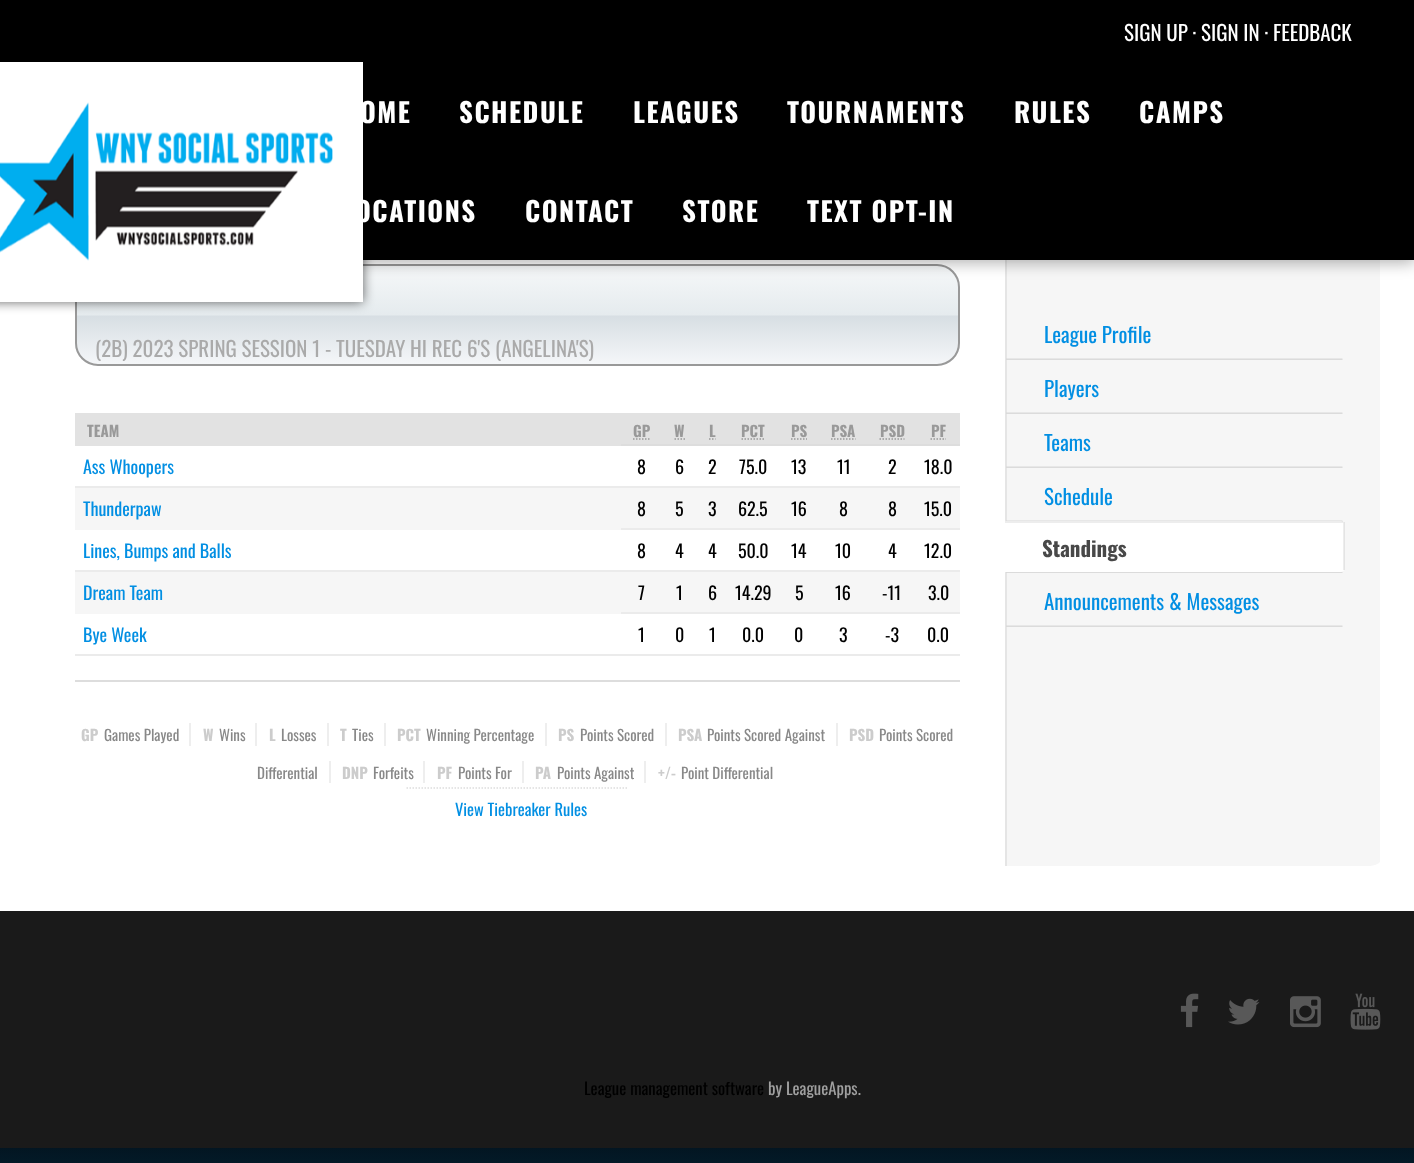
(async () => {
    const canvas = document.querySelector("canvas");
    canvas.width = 1414;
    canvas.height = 1163;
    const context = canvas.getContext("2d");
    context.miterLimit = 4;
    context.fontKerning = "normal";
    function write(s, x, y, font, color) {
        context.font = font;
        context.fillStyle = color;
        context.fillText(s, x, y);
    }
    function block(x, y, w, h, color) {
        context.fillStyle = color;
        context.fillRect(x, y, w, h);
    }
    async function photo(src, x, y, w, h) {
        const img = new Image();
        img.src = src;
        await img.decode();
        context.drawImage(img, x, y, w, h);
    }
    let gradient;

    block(0, 0, 1414, 1163, "rgb(255, 255, 255)");
    gradient = context.createLinearGradient(707, 1104, 707, 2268);
    gradient.addColorStop(0, "rgb(3, 9, 17)");
    gradient.addColorStop(0.5, "rgb(0, 174, 239)");
    gradient.addColorStop(0.5, "rgb(41, 137, 216)");
    gradient.addColorStop(0.51, "rgb(32, 124, 202)");
    gradient.addColorStop(1, "rgb(137, 251, 255)");
    context.fillStyle = gradient;
    context.fillRect(0, 1148, 1414, 15);
    block(0, 0, 1414, 62, "rgb(0, 0, 0)");
    write("SIGN UP · SIGN IN · FEEDBACK", 1124, 41, "21px Oswald", "rgb(255, 255, 255)");
    context.save();
    context.beginPath();
    context.roundRect(75, 264, 885, 102, 23);
    context.clip();
    gradient = context.createLinearGradient(518, 265, 518, 365);
    gradient.addColorStop(0, "rgb(246, 248, 249)");
    gradient.addColorStop(0.5, "rgb(229, 235, 238)");
    gradient.addColorStop(0.51, "rgb(215, 222, 227)");
    gradient.addColorStop(1, "rgb(245, 247, 249)");
    context.fillStyle = gradient;
    context.fillRect(75, 266, 885, 99);
    context.restore();
    context.beginPath();
    context.roundRect(76, 265, 883, 100, 22);
    context.strokeStyle = "rgb(153, 153, 153)";
    context.lineWidth = 2;
    context.stroke();
    context.save();
    context.beginPath();
    context.roundRect(30, 234, 1355, 632, 15);
    context.clip();
    block(1007, 260, 373, 606, "rgb(246, 246, 246)");
    context.restore();
    block(1005, 260, 2, 606, "rgb(229, 229, 229)");
    context.fillStyle = "rgba(0, 0, 0, 0.3)";
    context.filter = "blur(7.5px)";
    context.beginPath();
    context.rect(0, 65, 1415, 198);
    context.fill();
    context.filter = "none";
    block(363, 62, 1051, 198, "rgb(0, 0, 0)");
    context.fillStyle = "rgba(0, 0, 0, 0.6)";
    context.filter = "blur(6px)";
    context.beginPath();
    context.rect(-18, 62, 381, 240);
    context.fill();
    context.filter = "none";
    block(0, 62, 363, 240, "rgb(255, 255, 255)");
    await photo("media/1.png", 0, 102, 333, 159);
    context.letterSpacing = "1.5px";
    write("OME", 360, 123, "bold 27px Oswald", "rgb(255, 255, 255)");
    write("SCHEDULE", 459, 123, "bold 27px Oswald", "rgb(255, 255, 255)");
    write("LEAGUES", 633, 123, "bold 27px Oswald", "rgb(255, 255, 255)");
    write("TOURNAMENTS", 787, 123, "bold 27px Oswald", "rgb(255, 255, 255)");
    write("RULES", 1014, 123, "bold 27px Oswald", "rgb(255, 255, 255)");
    write("CAMPS", 1139, 123, "bold 27px Oswald", "rgb(255, 255, 255)");
    write("OCATIONS", 355, 222, "bold 27px Oswald", "rgb(255, 255, 255)");
    write("CONTACT", 525, 222, "bold 27px Oswald", "rgb(255, 255, 255)");
    write("STORE", 682, 222, "bold 27px Oswald", "rgb(255, 255, 255)");
    write("TEXT OPT-IN", 807, 222, "bold 27px Oswald", "rgb(255, 255, 255)");
    context.letterSpacing = "0px";
    write("(2B) 2023 SPRING SESSION 1 - TUESDAY HI REC 6'S (ANGELINA'S)", 95, 357, "21px Oswald", "rgb(170, 170, 170)");
    block(75, 413, 546, 33, "rgb(226, 226, 226)");
    write("TEAM", 87, 437, "bold 15px Oswald", "rgb(153, 153, 153)");
    block(621, 413, 339, 31, "rgb(226, 226, 226)");
    write("GP", 633, 437, "bold 15px Oswald", "rgb(153, 153, 153)");
    context.beginPath();
    context.moveTo(633, 439);
    context.lineTo(650.5, 439);
    context.lineWidth = 1.5;
    context.setLineDash([1.5, 1.5]);
    context.stroke();
    write("W", 674, 437, "bold 15px Oswald", "rgb(153, 153, 153)");
    context.beginPath();
    context.moveTo(674.5, 439);
    context.lineTo(676, 439);
    context.moveTo(677.5, 439);
    context.lineTo(679, 439);
    context.moveTo(680.5, 439);
    context.lineTo(682, 439);
    context.moveTo(683.5, 439);
    context.lineTo(685, 439);
    context.setLineDash([]);
    context.stroke();
    write("L", 709, 437, "bold 15px Oswald", "rgb(153, 153, 153)");
    context.beginPath();
    context.moveTo(709, 439);
    context.lineTo(710.5, 439);
    context.moveTo(712, 439);
    context.lineTo(713.5, 439);
    context.moveTo(715, 439);
    context.lineTo(715.5, 439);
    context.stroke();
    write("PCT", 741, 437, "bold 15px Oswald", "rgb(153, 153, 153)");
    context.beginPath();
    context.moveTo(741.5, 439);
    context.lineTo(765, 439);
    context.setLineDash([1.5, 1.5]);
    context.stroke();
    write("PS", 791, 437, "bold 15px Oswald", "rgb(153, 153, 153)");
    context.beginPath();
    context.moveTo(791, 439);
    context.lineTo(807, 439);
    context.stroke();
    write("PSA", 831, 437, "bold 15px Oswald", "rgb(153, 153, 153)");
    context.beginPath();
    context.moveTo(831, 439);
    context.lineTo(855.5, 439);
    context.stroke();
    write("PSD", 880, 437, "bold 15px Oswald", "rgb(153, 153, 153)");
    context.beginPath();
    context.moveTo(879.5, 439);
    context.lineTo(904.5, 439);
    context.stroke();
    write("PF", 931, 437, "bold 15px Oswald", "rgb(153, 153, 153)");
    context.beginPath();
    context.moveTo(930.5, 439);
    context.lineTo(946, 439);
    context.stroke();
    write("Ass Whoopers", 83, 474, "18px Oswald", "rgb(2, 143, 227)");
    write("8", 637, 474, "18px Oswald", "rgb(0, 0, 0)");
    write("6", 675, 474, "18px Oswald", "rgb(0, 0, 0)");
    write("2", 708, 474, "18px Oswald", "rgb(0, 0, 0)");
    write("75.0", 739, 474, "18px Oswald", "rgb(0, 0, 0)");
    write("13", 791, 474, "18px Oswald", "rgb(0, 0, 0)");
    write("11", 837, 474, "18px Oswald", "rgb(0, 0, 0)");
    write("2", 888, 474, "18px Oswald", "rgb(0, 0, 0)");
    block(621, 444, 339, 2, "rgb(221, 221, 221)");
    block(75, 486, 885, 2, "rgb(235, 235, 235)");
    write("18.0", 924, 474, "18px Oswald", "rgb(0, 0, 0)");
    block(75, 488, 546, 42, "rgb(246, 246, 246)");
    write("Thunderpaw", 83, 516, "18px Oswald", "rgb(2, 143, 227)");
    block(621, 488, 339, 40, "rgb(246, 246, 246)");
    write("8", 637, 516, "18px Oswald", "rgb(0, 0, 0)");
    write("5", 675, 516, "18px Oswald", "rgb(0, 0, 0)");
    write("3", 708, 516, "18px Oswald", "rgb(0, 0, 0)");
    write("62.5", 738, 516, "18px Oswald", "rgb(0, 0, 0)");
    write("16", 791, 516, "18px Oswald", "rgb(0, 0, 0)");
    write("8", 839, 516, "18px Oswald", "rgb(0, 0, 0)");
    write("8", 888, 516, "18px Oswald", "rgb(0, 0, 0)");
    block(621, 528, 339, 2, "rgb(235, 235, 235)");
    write("15.0", 924, 516, "18px Oswald", "rgb(0, 0, 0)");
    write("Lines, Bumps and Balls", 83, 558, "18px Oswald", "rgb(2, 143, 227)");
    write("8", 637, 558, "18px Oswald", "rgb(0, 0, 0)");
    write("4", 675, 558, "18px Oswald", "rgb(0, 0, 0)");
    write("4", 708, 558, "18px Oswald", "rgb(0, 0, 0)");
    write("50.0", 738, 558, "18px Oswald", "rgb(0, 0, 0)");
    write("14", 791, 558, "18px Oswald", "rgb(0, 0, 0)");
    write("10", 835, 558, "18px Oswald", "rgb(0, 0, 0)");
    write("4", 888, 558, "18px Oswald", "rgb(0, 0, 0)");
    block(75, 570, 885, 2, "rgb(235, 235, 235)");
    write("12.0", 924, 558, "18px Oswald", "rgb(0, 0, 0)");
    block(75, 572, 546, 42, "rgb(246, 246, 246)");
    write("Dream Team", 83, 600, "18px Oswald", "rgb(2, 143, 227)");
    block(621, 572, 339, 40, "rgb(246, 246, 246)");
    write("7", 638, 600, "18px Oswald", "rgb(0, 0, 0)");
    write("1", 676, 600, "18px Oswald", "rgb(0, 0, 0)");
    write("6", 708, 600, "18px Oswald", "rgb(0, 0, 0)");
    write("14.29", 735, 600, "18px Oswald", "rgb(0, 0, 0)");
    write("5", 795, 600, "18px Oswald", "rgb(0, 0, 0)");
    write("16", 835, 600, "18px Oswald", "rgb(0, 0, 0)");
    write("-11", 882, 600, "18px Oswald", "rgb(0, 0, 0)");
    block(621, 612, 339, 2, "rgb(235, 235, 235)");
    write("3.0", 928, 600, "18px Oswald", "rgb(0, 0, 0)");
    write("Bye Week", 83, 642, "18px Oswald", "rgb(2, 143, 227)");
    write("1", 638, 642, "18px Oswald", "rgb(0, 0, 0)");
    write("0", 675, 642, "18px Oswald", "rgb(0, 0, 0)");
    write("1", 709, 642, "18px Oswald", "rgb(0, 0, 0)");
    write("0.0", 742, 642, "18px Oswald", "rgb(0, 0, 0)");
    write("0", 794, 642, "18px Oswald", "rgb(0, 0, 0)");
    write("3", 839, 642, "18px Oswald", "rgb(0, 0, 0)");
    write("-3", 885, 642, "18px Oswald", "rgb(0, 0, 0)");
    block(75, 654, 885, 2, "rgb(235, 235, 235)");
    write("0.0", 927, 642, "18px Oswald", "rgb(0, 0, 0)");
    block(75, 680, 885, 2, "rgb(221, 221, 221)");
    write("GP", 81, 741, "bold 15px Oswald", "rgb(204, 204, 204)");
    write("Games Played", 104, 741, "15px Oswald", "rgb(136, 136, 136)");
    write("W", 203, 741, "bold 15px Oswald", "rgb(204, 204, 204)");
    block(189, 723, 2, 23, "rgb(238, 238, 238)");
    write("Wins", 219, 741, "15px Oswald", "rgb(136, 136, 136)");
    write("L", 269, 741, "bold 15px Oswald", "rgb(204, 204, 204)");
    block(255, 723, 2, 23, "rgb(238, 238, 238)");
    write("Losses", 281, 741, "15px Oswald", "rgb(136, 136, 136)");
    write("T", 340, 741, "bold 15px Oswald", "rgb(204, 204, 204)");
    block(327, 723, 2, 23, "rgb(238, 238, 238)");
    write("Ties", 352, 741, "15px Oswald", "rgb(136, 136, 136)");
    write("PCT", 397, 741, "bold 15px Oswald", "rgb(204, 204, 204)");
    block(384, 723, 2, 23, "rgb(238, 238, 238)");
    write("Winning Percentage", 426, 741, "15px Oswald", "rgb(136, 136, 136)");
    write("PS", 558, 741, "bold 15px Oswald", "rgb(204, 204, 204)");
    block(545, 723, 2, 23, "rgb(238, 238, 238)");
    write("Points Scored", 580, 741, "15px Oswald", "rgb(136, 136, 136)");
    write("PSA", 678, 741, "bold 15px Oswald", "rgb(204, 204, 204)");
    block(665, 723, 2, 23, "rgb(238, 238, 238)");
    write("Points Scored Against", 707, 741, "15px Oswald", "rgb(136, 136, 136)");
    write("PSD", 849, 741, "bold 15px Oswald", "rgb(204, 204, 204)");
    block(836, 723, 2, 23, "rgb(238, 238, 238)");
    write("Points Scored", 879, 741, "15px Oswald", "rgb(136, 136, 136)");
    write("Differential", 257, 779, "15px Oswald", "rgb(136, 136, 136)");
    write("DNP", 342, 779, "bold 15px Oswald", "rgb(204, 204, 204)");
    block(329, 761, 2, 22, "rgb(238, 238, 238)");
    write("Forfeits", 373, 779, "15px Oswald", "rgb(136, 136, 136)");
    write("PF", 437, 779, "bold 15px Oswald", "rgb(204, 204, 204)");
    block(423, 761, 2, 22, "rgb(238, 238, 238)");
    write("Points For", 458, 779, "15px Oswald", "rgb(136, 136, 136)");
    write("PA", 535, 779, "bold 15px Oswald", "rgb(204, 204, 204)");
    block(522, 761, 2, 22, "rgb(238, 238, 238)");
    write("Points Against", 557, 779, "15px Oswald", "rgb(136, 136, 136)");
    write("+/-", 658, 779, "bold 15px Oswald", "rgb(204, 204, 204)");
    block(644, 761, 2, 22, "rgb(238, 238, 238)");
    write("Point Differential", 681, 779, "15px Oswald", "rgb(136, 136, 136)");
    context.beginPath();
    context.moveTo(406.5, 788);
    context.lineTo(628.5, 788);
    context.strokeStyle = "rgb(221, 221, 221)";
    context.stroke();
    write("View Tiebreaker Rules", 455, 816, "16.5px Oswald", "rgb(2, 143, 227)");
    await photo("media/2.png", 1006, 358, 337, 2);
    write("League Profile", 1044, 343, "21px Oswald", "rgb(2, 143, 227)");
    await photo("media/2.png", 1006, 412, 337, 2);
    write("Players", 1044, 397, "21px Oswald", "rgb(2, 143, 227)");
    await photo("media/2.png", 1006, 466, 337, 2);
    write("Teams", 1044, 451, "21px Oswald", "rgb(2, 143, 227)");
    await photo("media/2.png", 1006, 520, 337, 2);
    write("Schedule", 1044, 505, "21px Oswald", "rgb(2, 143, 227)");
    await photo("media/2.png", 1006, 571, 337, 2);
    context.fillStyle = "rgb(255, 255, 255)";
    context.beginPath();
    context.roundRect(1005, 521, 339, 51, [0, 3, 3, 0]);
    context.fill();
    block(1005, 521, 338, 2, "rgba(0, 0, 0, 0.07)");
    block(1343, 522, 2, 48, "rgba(0, 0, 0, 0.07)");
    write("Standings", 1042, 557, "bold 21px Oswald", "rgb(72, 72, 72)");
    await photo("media/2.png", 1006, 625, 337, 2);
    write("Announcements & Messages", 1044, 610, "21px Oswald", "rgb(2, 143, 227)");
    block(0, 911, 1414, 237, "rgb(26, 26, 26)");
    await photo("media/3.png", 1180, 993, 19, 35);
    await photo("media/4.png", 1228, 998, 32, 27);
    await photo("media/5.png", 1290, 996, 31, 32);
    await photo("media/6.png", 1350, 993, 31, 37);
    write("League management software", 584, 1095, "16.75px Oswald", "rgb(0, 0, 0)");
    write("by LeagueApps.", 768, 1095, "16.75px Oswald", "rgb(160, 160, 160)");
})();
